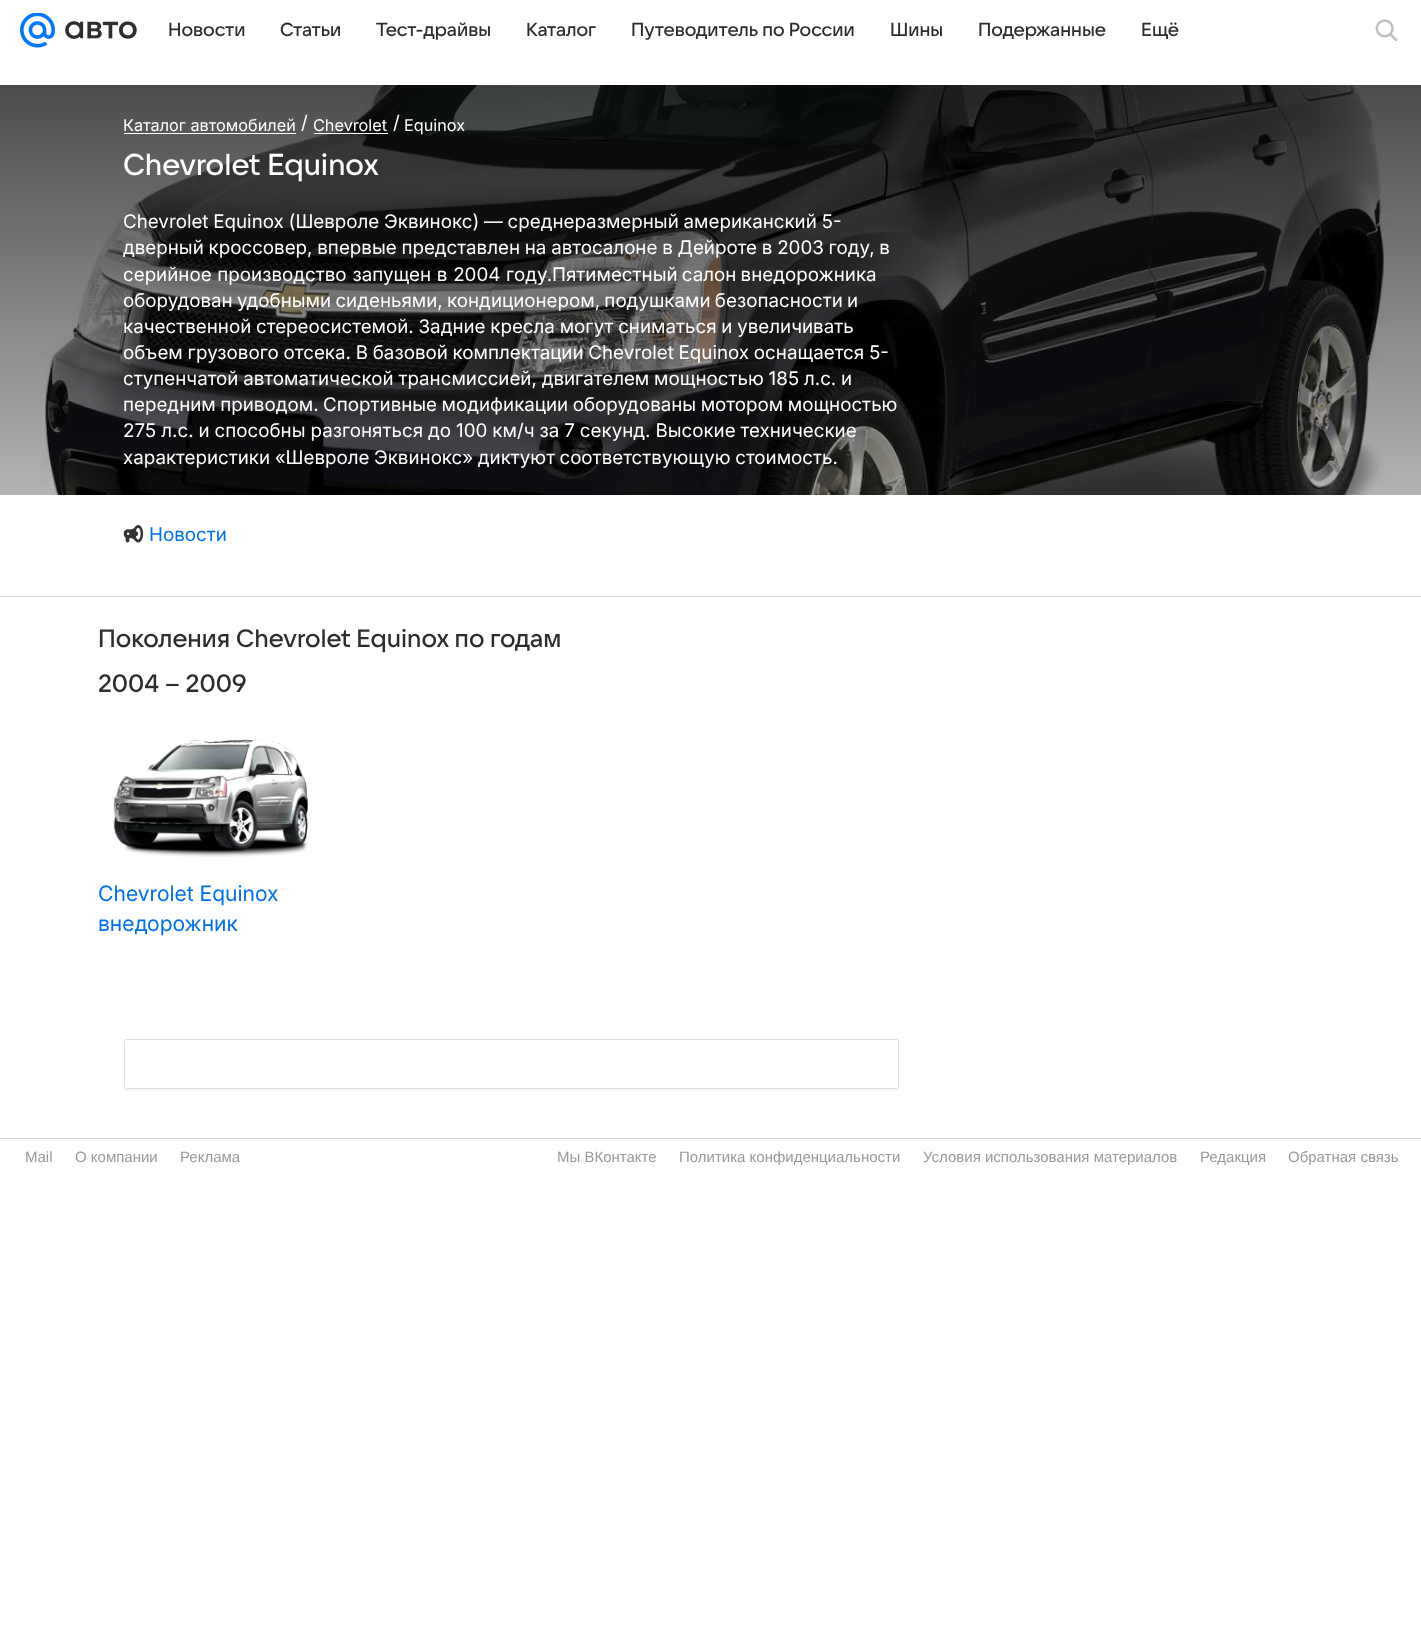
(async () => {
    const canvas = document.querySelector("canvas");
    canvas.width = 1421;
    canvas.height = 1639;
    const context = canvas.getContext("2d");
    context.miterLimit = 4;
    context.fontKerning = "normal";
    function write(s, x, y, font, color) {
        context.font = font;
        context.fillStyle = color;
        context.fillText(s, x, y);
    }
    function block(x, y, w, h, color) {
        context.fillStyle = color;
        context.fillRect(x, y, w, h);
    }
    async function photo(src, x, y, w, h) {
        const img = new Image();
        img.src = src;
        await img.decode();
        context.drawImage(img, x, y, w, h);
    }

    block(0, 0, 1421, 1639, "rgb(255, 255, 255)");
    await photo("media/1.png", 20, 13, 35, 35);
    await photo("media/2.png", 65, 21, 72, 18);
    write("Новости", 168, 36, "500 18.75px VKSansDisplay", "rgb(44, 45, 46)");
    write("Статьи", 280, 36, "500 18.75px VKSansDisplay", "rgb(44, 45, 46)");
    write("Тест-драйвы", 376, 36, "500 18.75px VKSansDisplay", "rgb(44, 45, 46)");
    write("Каталог", 526, 36, "500 18.75px VKSansDisplay", "rgb(44, 45, 46)");
    write("Путеводитель по России", 631, 36, "500 18.75px VKSansDisplay", "rgb(44, 45, 46)");
    write("Шины", 890, 36, "500 18.75px VKSansDisplay", "rgb(44, 45, 46)");
    write("Подержанные", 978, 36, "500 18.75px VKSansDisplay", "rgb(44, 45, 46)");
    write("Ещё", 1141, 36, "500 18.75px VKSansDisplay", "rgb(44, 45, 46)");
    await photo("media/3.png", 1375, 19, 23, 23);
    await photo("media/4.png", 0, 85, 1421, 410);
    write("Каталог автомобилей", 123, 131, "16.25px Inter", "rgb(255, 255, 255)");
    block(124, 133, 172, 1, "rgb(255, 255, 255)");
    write("/", 301, 129, "18.75px Inter", "rgb(255, 255, 255)");
    write("Chevrolet", 313, 131, "16.25px Inter", "rgb(255, 255, 255)");
    block(314, 133, 74, 1, "rgb(255, 255, 255)");
    write("/", 393, 129, "18.75px Inter", "rgb(255, 255, 255)");
    write("Equinox", 404, 131, "16.25px Inter", "rgb(255, 255, 255)");
    write("Chevrolet Equinox", 123, 175, "500 30px VKSansDisplay", "rgb(255, 255, 255)");
    context.wordSpacing = "-0.5px";
    write("Chevrolet Equinox (Шевроле Эквинокс) — среднеразмерный американский 5-", 123, 228, "18.75px Inter", "rgb(255, 255, 255)");
    write("дверный кроссовер, впервые представлен на автосалоне в Дейроте в 2003 году, в", 123, 254, "18.75px Inter", "rgb(255, 255, 255)");
    context.wordSpacing = "0.5px";
    write("серийное производство запущен в 2004 году.", 123, 281, "18.75px Inter", "rgb(255, 255, 255)");
    context.wordSpacing = "-1px";
    write("Пятиместный салон внедорожника", 552, 281, "18.75px Inter", "rgb(255, 255, 255)");
    write("оборудован удобными сиденьями, кондиционером, подушками безопасности и", 123, 307, "18.75px Inter", "rgb(255, 255, 255)");
    context.wordSpacing = "-0.5px";
    write("качественной стереосистемой. Задние кресла могут сниматься и увеличивать", 123, 333, "18.75px Inter", "rgb(255, 255, 255)");
    write("объем грузового отсека. В базовой комплектации Chevrolet Equinox оснащается 5-", 123, 359, "18.75px Inter", "rgb(255, 255, 255)");
    write("ступенчатой автоматической трансмиссией, двигателем мощностью 185 л.c. и", 123, 385, "18.75px Inter", "rgb(255, 255, 255)");
    context.wordSpacing = "-0.75px";
    write("передним приводом. Спортивные модификации оборудованы мотором мощностью", 123, 411, "18.75px Inter", "rgb(255, 255, 255)");
    context.wordSpacing = "-0.3px";
    write("275 л.с. и способны разгоняться до 100 км/ч за 7 cекунд. Высокие технические", 123, 437, "18.75px Inter", "rgb(255, 255, 255)");
    context.wordSpacing = "-0.75px";
    write("характеристики «Шевроле Эквинокс» диктуют соответствующую стоимость.", 123, 464, "18.75px Inter", "rgb(255, 255, 255)");
    block(0, 596, 1421, 1, "rgb(222, 222, 222)");
    await photo("media/5.png", 123, 525, 21, 18);
    context.wordSpacing = "0px";
    write("Новости", 149, 541, "18.75px Inter", "rgb(0, 112, 240)");
    write("Поколения Chevrolet Equinox по годам", 98, 647, "500 25px VKSansDisplay", "rgb(44, 45, 46)");
    write("2004 – 2009", 98, 692, "500 25px VKSansDisplay", "rgb(44, 45, 46)");
    await photo("media/6.png", 113, 739, 195, 118);
    write("Chevrolet Equinox", 98, 901, "21.25px 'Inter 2'", "rgb(0, 112, 240)");
    write("внедорожник", 98, 931, "21.25px 'Inter 2'", "rgb(0, 112, 240)");
    context.fillStyle = "rgb(245, 245, 245)";
    context.beginPath();
    context.moveTo(124, 1087);
    context.lineTo(124, 1090);
    context.lineTo(126, 1091);
    context.lineTo(896, 1091);
    context.bezierCurveTo(901, 1091, 899, 1082, 899, 1081);
    context.lineTo(899, 1042);
    context.lineTo(899, 1086);
    context.bezierCurveTo(899, 1088, 898, 1089, 896, 1089);
    context.lineTo(126, 1089);
    context.bezierCurveTo(125, 1089, 124, 1088, 124, 1087);
    context.closePath();
    context.fill();
    context.beginPath();
    context.roundRect(124.5, 1039.5, 774, 49, 2);
    context.strokeStyle = "rgb(222, 222, 222)";
    context.stroke();
    block(125, 1040, 773, 48, "rgb(255, 255, 255)");
    block(0, 1138, 1421, 1, "rgb(213, 213, 213)");
    write("Mail", 25, 1162, "15px Liberation Sans", "rgb(153, 153, 153)");
    write("О компании", 75, 1162, "15px Liberation Sans", "rgb(153, 153, 153)");
    write("Реклама", 180, 1162, "15px Liberation Sans", "rgb(153, 153, 153)");
    write("Мы ВКонтакте", 557, 1162, "15px Liberation Sans", "rgb(153, 153, 153)");
    write("Политика конфиденциальности", 679, 1162, "15px Liberation Sans", "rgb(153, 153, 153)");
    write("Условия использования материалов", 923, 1162, "15px Liberation Sans", "rgb(153, 153, 153)");
    write("Редакция", 1200, 1162, "15px Liberation Sans", "rgb(153, 153, 153)");
    write("Обратная связь", 1288, 1162, "15px Liberation Sans", "rgb(153, 153, 153)");
})();
